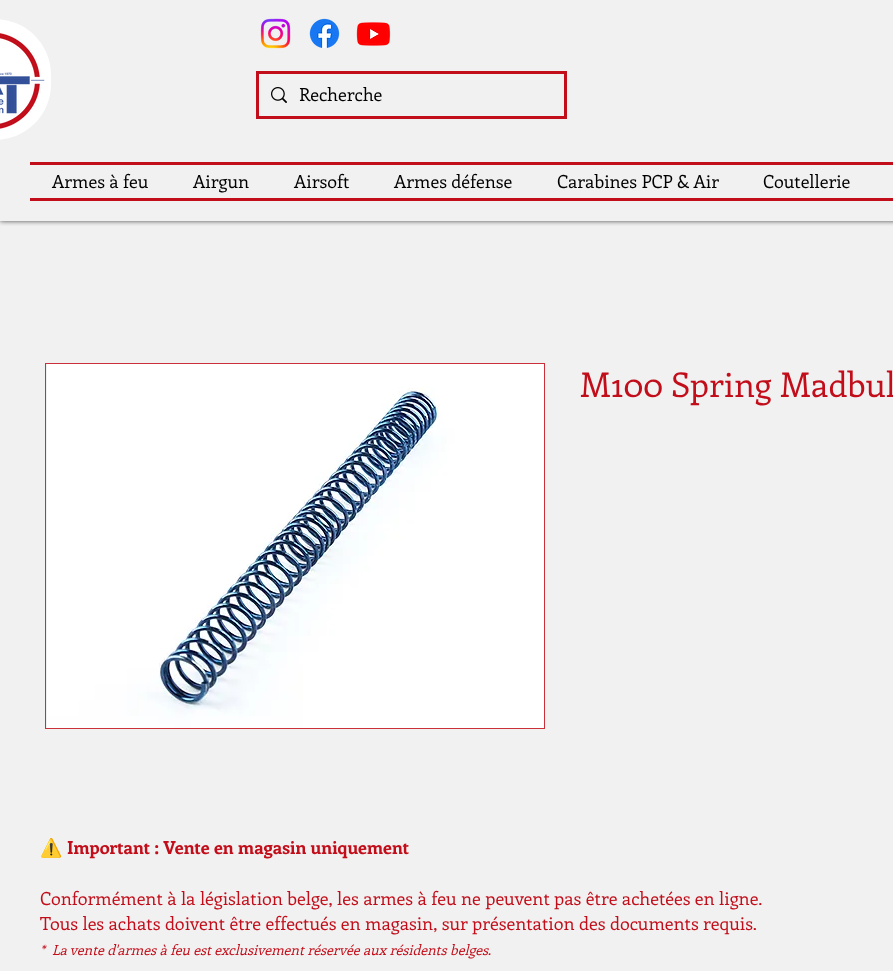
(async () => {
    const canvas = document.querySelector("canvas");
    canvas.width = 893;
    canvas.height = 971;
    const context = canvas.getContext("2d");
    context.miterLimit = 4;
    context.fontKerning = "normal";
    function write(s, x, y, font, color) {
        context.font = font;
        context.fillStyle = color;
        context.fillText(s, x, y);
    }
    function block(x, y, w, h, color) {
        context.fillStyle = color;
        context.fillRect(x, y, w, h);
    }
    function card(x, y, w, h, r, color) {
        context.fillStyle = color;
        context.beginPath();
        context.roundRect(x, y, w, h, r);
        context.fill();
    }
    async function photo(src, x, y, w, h) {
        const img = new Image();
        img.src = src;
        await img.decode();
        context.drawImage(img, x, y, w, h);
    }

    block(0, 0, 893, 971, "rgb(241, 241, 241)");
    context.save();
    context.beginPath();
    context.rect(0, 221, 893, 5);
    context.clip();
    context.fillStyle = "rgba(0, 0, 0, 0.7)";
    context.filter = "blur(2.5px)";
    context.beginPath();
    context.rect(0, 0, 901, 221);
    context.fill();
    context.filter = "none";
    context.restore();
    card(-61, 19, 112, 121, 60.5, "rgb(255, 255, 255)");
    await photo("media/1.png", 0, 33, 45, 96);
    await photo("media/2.png", 260, 18, 31, 31);
    await photo("media/3.png", 309, 18, 31, 30);
    await photo("media/4.png", 356, 22, 35, 24);
    context.strokeStyle = "rgb(194, 14, 26)";
    context.lineWidth = 3;
    context.strokeRect(257.5, 72.5, 308, 45);
    await photo("media/5.png", 271, 87, 16, 16);
    write("Recherche", 299, 101, "18px Enriqueta", "rgb(0, 0, 0)");
    block(30, 162, 863, 3, "rgb(194, 14, 26)");
    block(30, 198, 863, 3, "rgb(194, 14, 26)");
    write("Armes à feu", 52, 188, "18px Enriqueta", "rgb(0, 0, 0)");
    write("Airgun", 193, 188, "18px Enriqueta", "rgb(0, 0, 0)");
    write("Airsoft", 294, 188, "18px Enriqueta", "rgb(0, 0, 0)");
    write("Armes défense", 394, 188, "18px Enriqueta", "rgb(0, 0, 0)");
    write("Carabines PCP & Air", 557, 188, "18px Enriqueta", "rgb(0, 0, 0)");
    write("Coutellerie", 763, 188, "18px Enriqueta", "rgb(0, 0, 0)");
    context.strokeStyle = "rgb(201, 48, 58)";
    context.lineWidth = 1;
    context.strokeRect(45.5, 363.5, 499, 365);
    await photo("media/6.png", 47, 364, 497, 364);
    write("M100 Spring Madbul", 580, 397, "34px Enriqueta", "rgb(194, 14, 26)");
    write("⚠️", 40, 854, "bold 18px Noto Color Emoji", "rgb(194, 14, 26)");
    write("Important : Vente en magasin uniquement", 67, 854, "bold 18px Enriqueta", "rgb(194, 14, 26)");
    write("Conformément à la législation belge, les armes à feu ne peuvent pas être achetées en ligne.", 40, 905, "18px Enriqueta", "rgb(194, 14, 26)");
    write("Tous les achats doivent être effectués en magasin, sur présentation des documents requis.", 40, 930, "18px Enriqueta", "rgb(194, 14, 26)");
    write("*  La vente d'armes à feu est exclusivement réservée aux résidents belges.", 40, 955, "italic 14px Enriqueta", "rgb(194, 14, 26)");
})();
